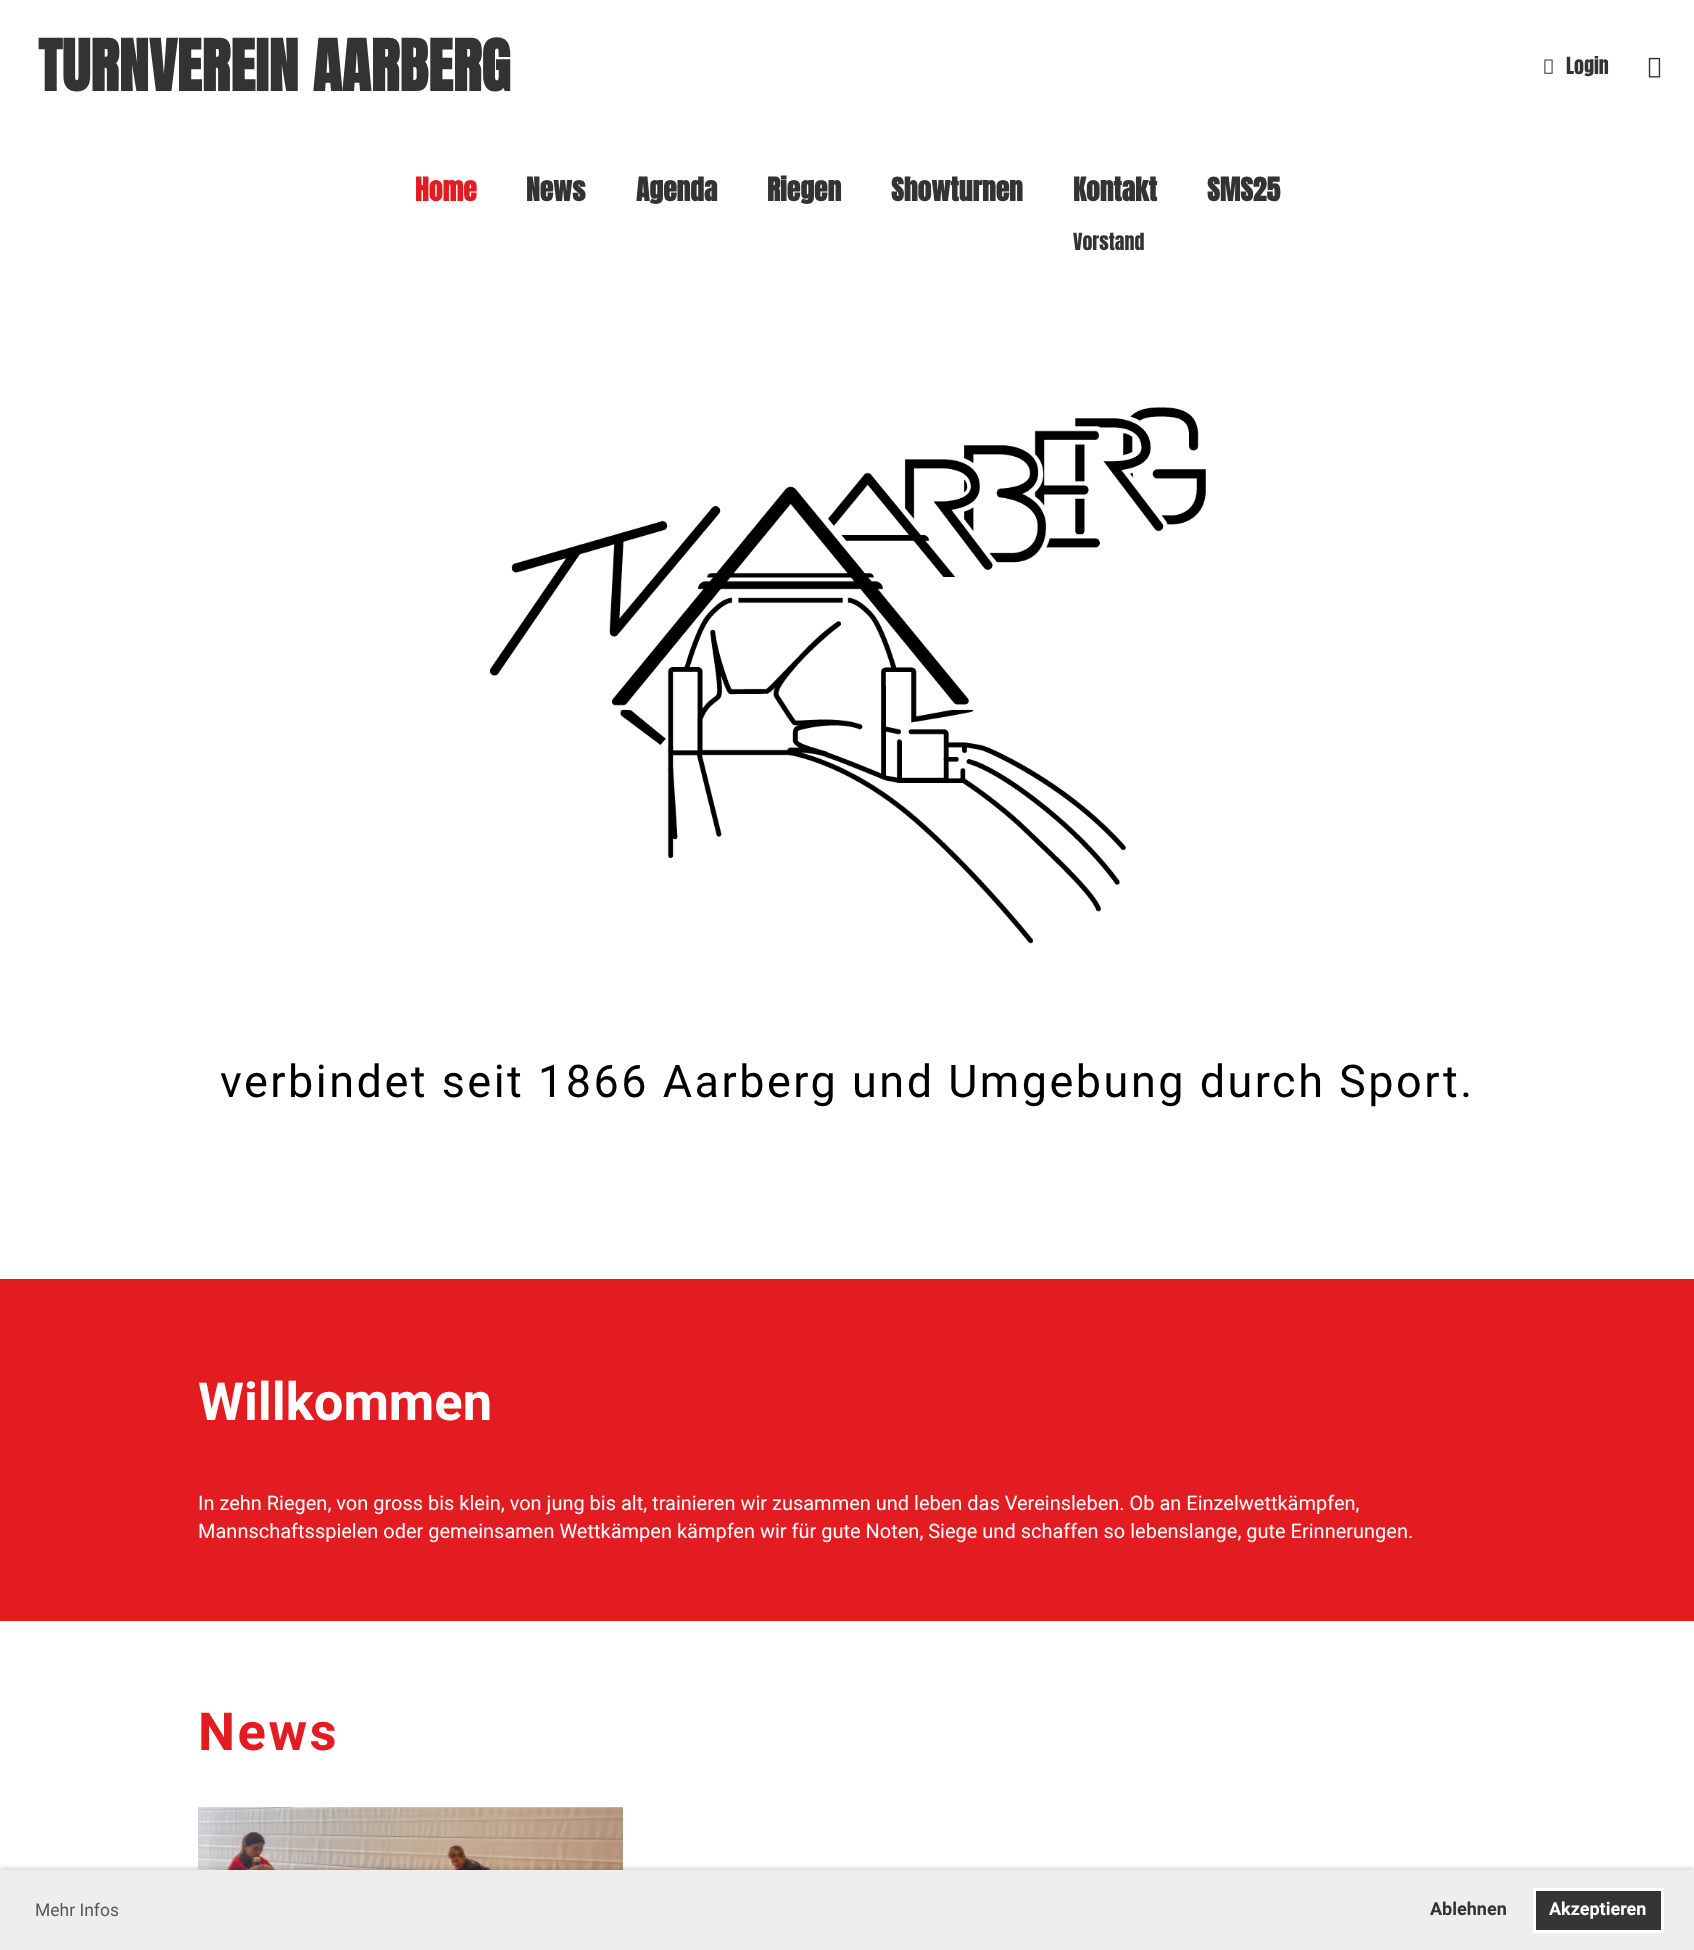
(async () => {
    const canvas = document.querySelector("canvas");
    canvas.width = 1694;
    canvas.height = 1950;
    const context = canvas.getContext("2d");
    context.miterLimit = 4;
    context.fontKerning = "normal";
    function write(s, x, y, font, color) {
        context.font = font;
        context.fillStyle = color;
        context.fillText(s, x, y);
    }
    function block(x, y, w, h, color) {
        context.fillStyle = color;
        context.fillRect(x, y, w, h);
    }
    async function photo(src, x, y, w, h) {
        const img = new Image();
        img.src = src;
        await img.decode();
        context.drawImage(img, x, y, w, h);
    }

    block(0, 0, 1694, 1950, "rgb(255, 255, 255)");
    write("TURNVEREIN AARBERG", 38, 91, "bold 60px Anton", "rgb(51, 51, 51)");
    await photo("media/1.png", 1544, 59, 9, 15);
    write("Login", 1566, 74, "20px Anton", "rgb(51, 51, 51)");
    await photo("media/2.png", 1648, 57, 13, 21);
    write("Home", 415, 201, "bold 27.5px Anton", "rgb(226, 28, 33)");
    write("News", 526, 201, "bold 27.5px Anton", "rgb(51, 51, 51)");
    write("Agenda", 636, 201, "bold 27.5px Anton", "rgb(51, 51, 51)");
    write("Riegen", 767, 201, "bold 27.5px Anton", "rgb(51, 51, 51)");
    write("Showturnen", 891, 201, "bold 27.5px Anton", "rgb(51, 51, 51)");
    write("Kontakt", 1073, 201, "bold 27.5px Anton", "rgb(51, 51, 51)");
    write("Vorstand", 1073, 250, "20px Anton", "rgb(51, 51, 51)");
    write("SMS25", 1207, 201, "bold 27.5px Anton", "rgb(51, 51, 51)");
    await photo("media/3.png", 489, 407, 717, 537);
    context.letterSpacing = "2.5px";
    write("verbindet seit 1866 Aarberg und Umgebung durch Sport.", 220, 1097, "45px Roboto", "rgb(0, 0, 0)");
    block(0, 1279, 1694, 342, "rgb(226, 28, 33)");
    context.letterSpacing = "0px";
    write("Willkommen", 198, 1420, "bold 52.5px Roboto", "rgb(255, 255, 255)");
    write("In zehn Riegen, von gross bis klein, von jung bis alt, trainieren wir zusammen und leben das Vereinsleben. Ob an Einzelwettkämpfen,", 198, 1510, "20px Roboto", "rgb(255, 255, 255)");
    write("Mannschaftsspielen oder gemeinsamen Wettkämpen kämpfen wir für gute Noten, Siege und schaffen so lebenslange, gute Erinnerungen.", 198, 1538, "20px Roboto", "rgb(255, 255, 255)");
    context.letterSpacing = "2.5px";
    write("News", 198, 1750, "bold 52.5px Roboto", "rgb(226, 28, 33)");
    await photo("media/4.png", 198, 1807, 425, 63);
    context.fillStyle = "rgba(0, 0, 0, 0.3)";
    context.filter = "blur(3px)";
    context.beginPath();
    context.rect(0, 1870, 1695, 80);
    context.fill();
    context.filter = "none";
    block(0, 1870, 1694, 80, "rgb(238, 238, 238)");
    context.letterSpacing = "0px";
    write("Mehr Infos", 35, 1916, "17.5px Roboto", "rgb(88, 88, 88)");
    write("Ablehnen", 1430, 1915, "bold 18px Roboto", "rgb(51, 51, 51)");
    context.fillStyle = "rgb(53, 53, 53)";
    context.beginPath();
    context.rect(1534.5, 1889.5, 128, 42);
    context.fill();
    context.strokeStyle = "rgb(255, 255, 255)";
    context.lineWidth = 3;
    context.stroke();
    write("Akzeptieren", 1549, 1915, "bold 18px Roboto", "rgb(255, 255, 255)");
})();
